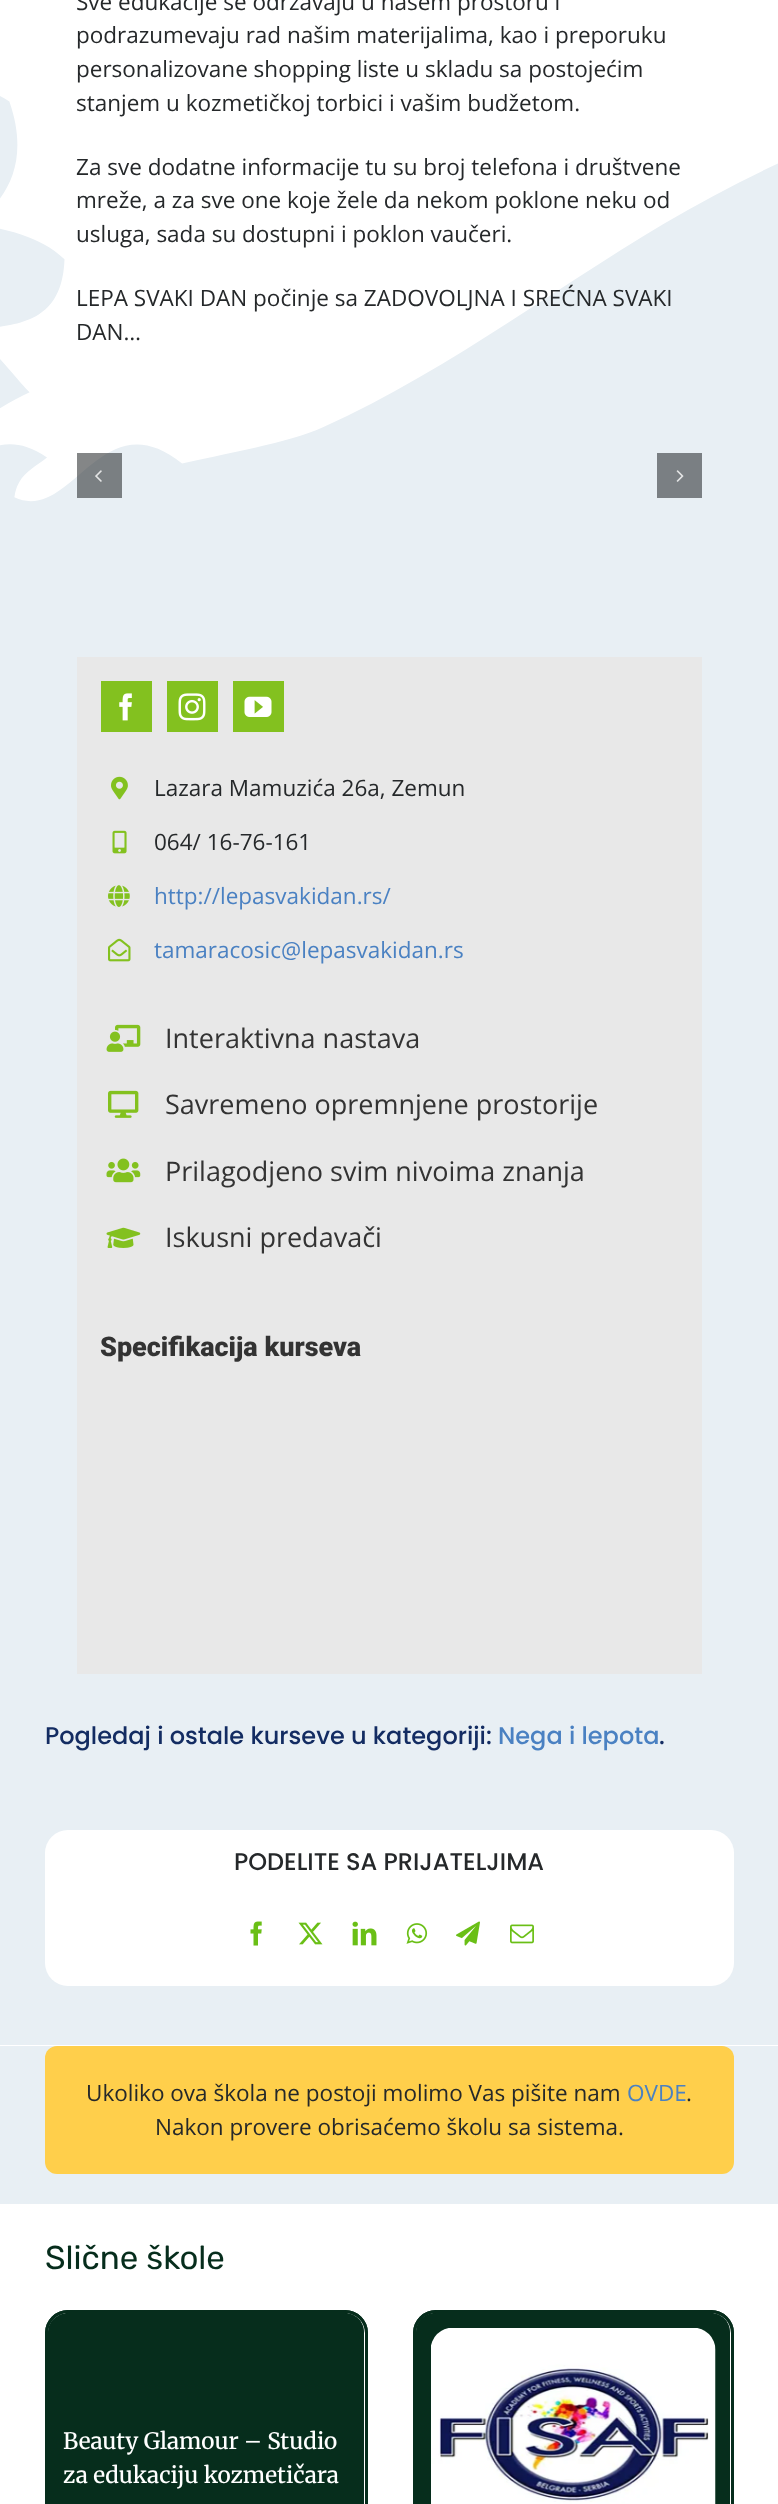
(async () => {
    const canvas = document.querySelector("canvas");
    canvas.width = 778;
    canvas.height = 2504;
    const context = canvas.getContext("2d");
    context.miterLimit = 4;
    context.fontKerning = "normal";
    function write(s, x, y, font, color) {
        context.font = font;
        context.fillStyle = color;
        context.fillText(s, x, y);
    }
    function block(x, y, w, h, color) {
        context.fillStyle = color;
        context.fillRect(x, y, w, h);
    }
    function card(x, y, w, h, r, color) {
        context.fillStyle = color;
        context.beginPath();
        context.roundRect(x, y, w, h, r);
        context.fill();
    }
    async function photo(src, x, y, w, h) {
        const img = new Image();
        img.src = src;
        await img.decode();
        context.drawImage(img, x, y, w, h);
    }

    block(0, 0, 778, 2504, "rgb(255, 255, 255)");
    write("Sve edukacije se održavaju u našem prostoru i", 76, 10, "22.5px Open Sans", "rgb(37, 40, 42)");
    write("podrazumevaju rad našim materijalima, kao i preporuku", 76, 43, "22.5px Open Sans", "rgb(37, 40, 42)");
    write("personalizovane shopping liste u skladu sa postojećim", 76, 77, "22.5px Open Sans", "rgb(37, 40, 42)");
    await photo("media/20.png", 0, 96, 778, 1949);
    write("stanjem u kozmetičkoj torbici i vašim budžetom.", 76, 111, "22.5px Open Sans", "rgb(37, 40, 42)");
    write("Za sve dodatne informacije tu su broj telefona i društvene", 76, 175, "22.5px Open Sans", "rgb(37, 40, 42)");
    write("mreže, a za sve one koje žele da nekom poklone neku od", 76, 208, "22.5px Open Sans", "rgb(37, 40, 42)");
    write("usluga, sada su dostupni i poklon vaučeri.", 76, 242, "22.5px Open Sans", "rgb(37, 40, 42)");
    write("LEPA SVAKI DAN počinje sa ZADOVOLJNA I SREĆNA SVAKI", 76, 306, "22.5px Open Sans", "rgb(37, 40, 42)");
    write("DAN…", 76, 340, "22.5px Open Sans", "rgb(37, 40, 42)");
    block(77, 453, 45, 45, "rgba(36, 39, 41, 0.56)");
    await photo("media/1.png", 95, 470, 7, 12);
    block(657, 453, 45, 45, "rgb(122, 127, 131)");
    await photo("media/2.png", 676, 470, 8, 12);
    block(77, 657, 625, 1017, "rgb(232, 232, 232)");
    block(101, 681, 51, 51, "rgb(131, 193, 31)");
    await photo("media/3.png", 119, 693, 13, 28);
    block(167, 681, 51, 51, "rgb(131, 193, 31)");
    await photo("media/4.png", 178, 693, 28, 28);
    block(233, 681, 51, 51, "rgb(131, 193, 31)");
    await photo("media/5.png", 244, 696, 28, 21);
    await photo("media/6.png", 111, 776, 17, 24);
    write("Lazara Mamuzića 26a, Zemun", 154, 796, "22.5px Open Sans", "rgb(37, 40, 42)");
    await photo("media/7.png", 112, 830, 15, 24);
    write("064/ 16-76-161", 154, 850, "22.5px Open Sans", "rgb(37, 40, 42)");
    await photo("media/8.png", 108, 885, 22, 22);
    write("http://lepasvakidan.rs/", 154, 904, "22.5px Open Sans", "rgb(74, 129, 194)");
    await photo("media/9.png", 108, 938, 23, 24);
    write("tamaracosic@lepasvakidan.rs", 154, 958, "22.5px Open Sans", "rgb(74, 129, 194)");
    await photo("media/10.png", 106, 1024, 35, 28);
    write("Interaktivna nastava", 165, 1048, "27px Open Sans", "rgb(51, 51, 51)");
    await photo("media/11.png", 108, 1090, 31, 28);
    write("Savremeno opremnjene prostorije", 165, 1114, "27px Open Sans", "rgb(51, 51, 51)");
    await photo("media/12.png", 106, 1158, 35, 25);
    write("Prilagodjeno svim nivoima znanja", 165, 1181, "27px Open Sans", "rgb(51, 51, 51)");
    await photo("media/13.png", 106, 1227, 35, 21);
    write("Iskusni predavači", 165, 1247, "27px Open Sans", "rgb(51, 51, 51)");
    write("Specifikacija kurseva", 100, 1356, "900 27px Roboto", "rgb(51, 51, 51)");
    write("Pogledaj i ostale kurseve u kategoriji:", 45, 1744, "500 24px Poppins", "rgb(19, 44, 98)");
    write("Nega i lepota", 498, 1744, "500 24px Poppins", "rgb(74, 129, 194)");
    write(".", 659, 1744, "500 24px Poppins", "rgb(19, 44, 98)");
    card(45, 1830, 689, 156, 23, "rgb(255, 255, 255)");
    write("PODELITE SA PRIJATELJIMA", 234, 1870, "500 24px Poppins", "rgb(37, 40, 42)");
    await photo("media/14.png", 250, 1921, 12, 25);
    await photo("media/15.png", 298, 1922, 25, 23);
    await photo("media/16.png", 352, 1921, 25, 25);
    await photo("media/17.png", 406, 1923, 22, 21);
    await photo("media/18.png", 456, 1921, 24, 25);
    await photo("media/19.png", 510, 1924, 24, 20);
    block(0, 2046, 778, 158, "rgb(232, 239, 244)");
    card(45, 2046, 689, 128, 12, "rgb(255, 207, 75)");
    write("Ukoliko ova škola ne postoji molimo Vas pišite nam", 86, 2101, "22.5px Open Sans", "rgb(37, 40, 42)");
    write("OVDE", 627, 2101, "22.5px Open Sans", "rgb(74, 129, 194)");
    write(".", 686, 2101, "22.5px Open Sans", "rgb(37, 40, 42)");
    write("Nakon provere obrisaćemo školu sa sistema.", 155, 2135, "22.5px Open Sans", "rgb(37, 40, 42)");
    write("Slične škole", 45, 2269, "300 33px Rubik", "rgb(6, 45, 28)");
    context.beginPath();
    context.moveTo(68, 2313);
    context.lineTo(345, 2313);
    context.bezierCurveTo(356, 2313, 364, 2322, 364, 2332);
    context.lineTo(364, 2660);
    context.bezierCurveTo(364, 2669, 356, 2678, 345, 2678);
    context.lineTo(68, 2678);
    context.bezierCurveTo(57, 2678, 48, 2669, 48, 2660);
    context.lineTo(48, 2332);
    context.bezierCurveTo(48, 2322, 57, 2313, 68, 2313);
    context.closePath();
    context.fill();
    context.beginPath();
    context.roundRect(46.5, 2311.5, 320, 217, 21.5);
    context.strokeStyle = "rgb(6, 45, 28)";
    context.lineWidth = 3;
    context.stroke();
    context.beginPath();
    context.roundRect(46.5, 2311.5, 320, 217, 21.5);
    context.stroke();
    write("Beauty Glamour – Studio", 63, 2449, "500 22.5px Merriweather", "rgb(255, 255, 255)");
    write("za edukaciju kozmetičara", 63, 2483, "500 22.5px Merriweather", "rgb(255, 255, 255)");
    context.fillStyle = "rgb(6, 45, 28)";
    context.beginPath();
    context.moveTo(435, 2313);
    context.lineTo(711, 2313);
    context.bezierCurveTo(722, 2313, 730, 2322, 730, 2332);
    context.lineTo(730, 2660);
    context.bezierCurveTo(730, 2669, 722, 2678, 711, 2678);
    context.lineTo(435, 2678);
    context.bezierCurveTo(424, 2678, 416, 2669, 416, 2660);
    context.lineTo(416, 2332);
    context.bezierCurveTo(416, 2322, 424, 2313, 435, 2313);
    context.closePath();
    context.fill();
    context.beginPath();
    context.roundRect(414.5, 2311.5, 318, 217, 21.5);
    context.stroke();
    context.beginPath();
    context.roundRect(414.5, 2311.5, 318, 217, 21.5);
    context.stroke();
    await photo("media/21.png", 431, 2328, 285, 176);
})();
